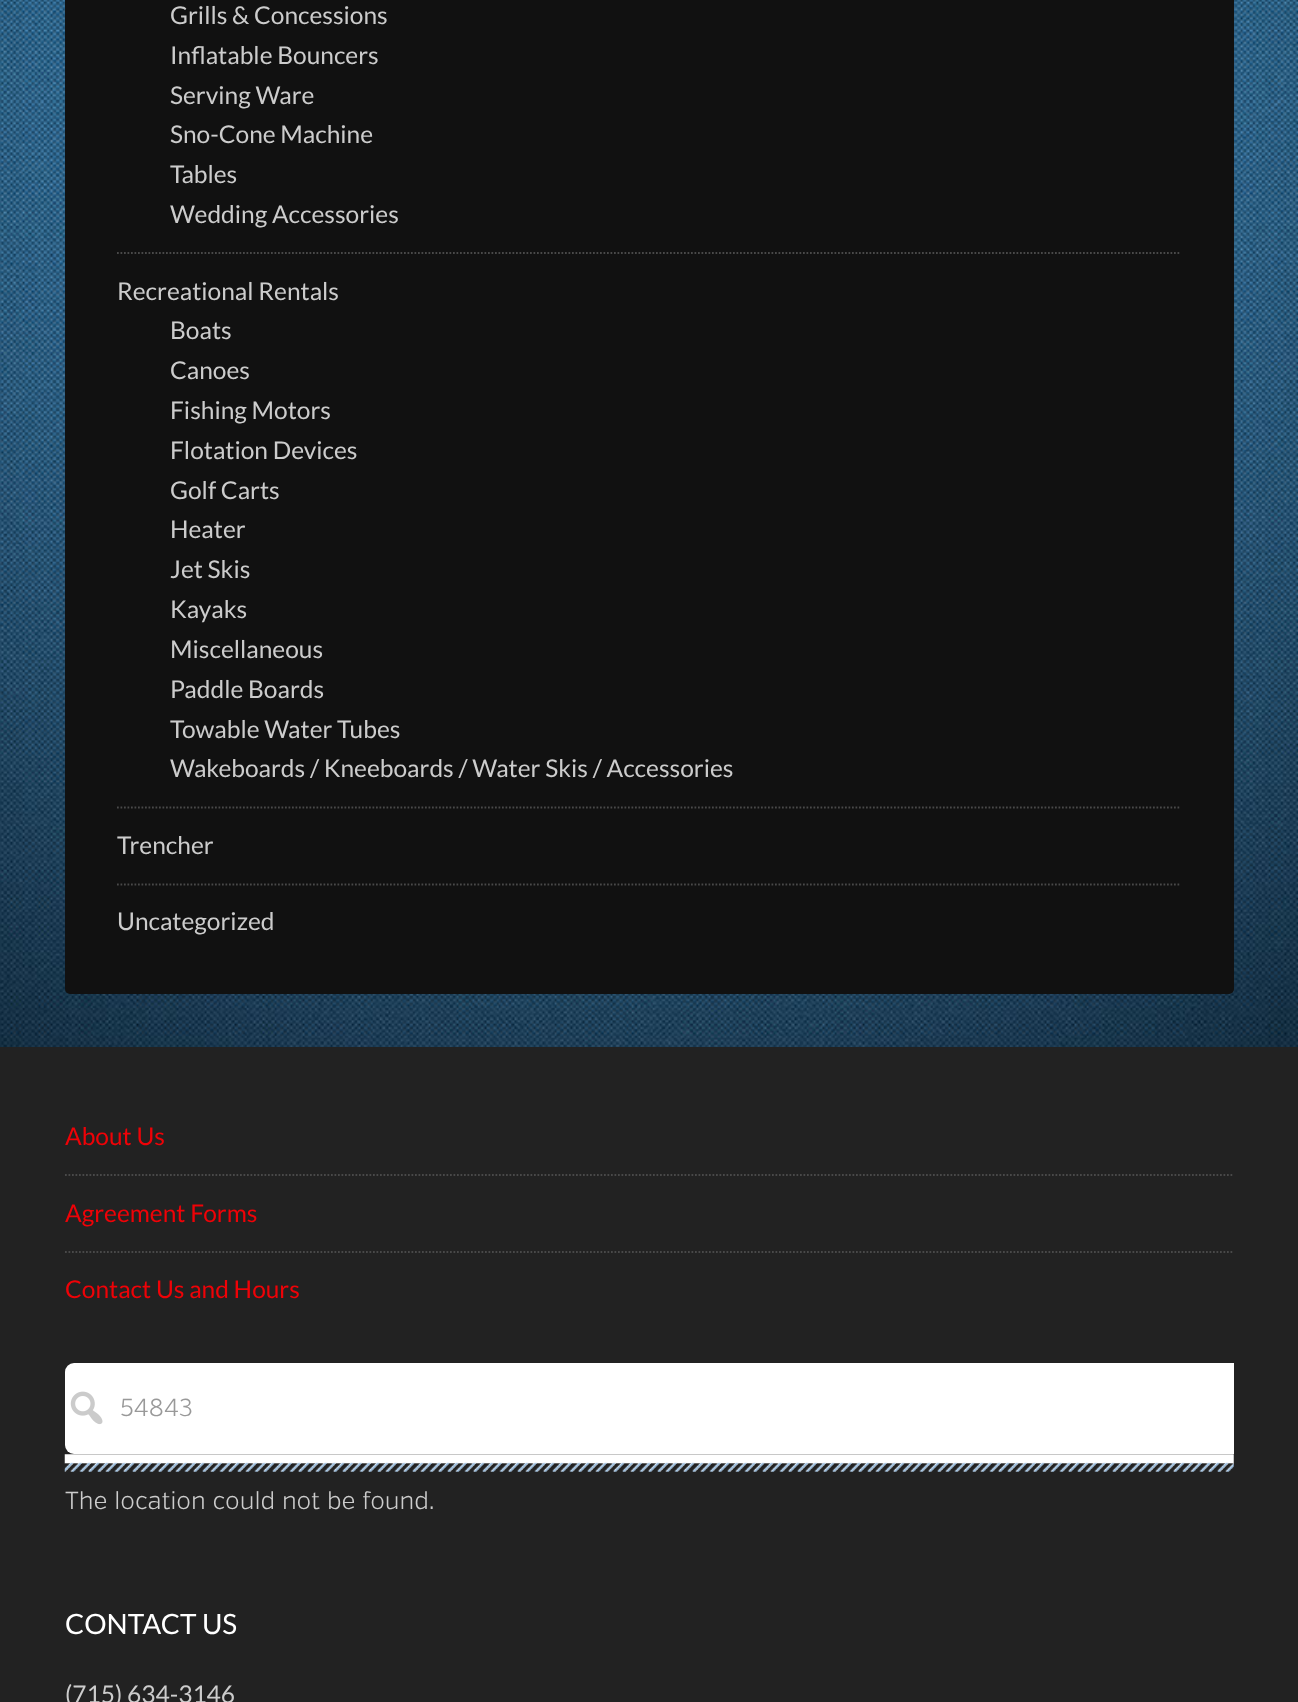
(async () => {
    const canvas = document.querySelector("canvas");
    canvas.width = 1298;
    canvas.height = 1702;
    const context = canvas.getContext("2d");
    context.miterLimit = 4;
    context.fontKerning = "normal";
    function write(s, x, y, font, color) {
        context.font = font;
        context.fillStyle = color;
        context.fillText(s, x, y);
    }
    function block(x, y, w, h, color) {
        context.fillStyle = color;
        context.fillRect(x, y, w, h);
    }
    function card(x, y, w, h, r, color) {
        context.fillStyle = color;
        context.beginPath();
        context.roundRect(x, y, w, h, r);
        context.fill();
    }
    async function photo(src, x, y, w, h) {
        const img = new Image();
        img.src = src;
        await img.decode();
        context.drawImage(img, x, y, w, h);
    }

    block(0, 0, 1298, 1702, "rgb(255, 255, 255)");
    await photo("media/1.png", 0, 0, 1298, 1047);
    card(65, -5, 1169, 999, 5, "rgb(17, 17, 17)");
    context.beginPath();
    context.moveTo(117, 253);
    context.lineTo(1181, 253);
    context.strokeStyle = "rgb(73, 73, 73)";
    context.lineWidth = 1.8;
    context.setLineDash([1.75, 1.75]);
    context.stroke();
    write("Grills & Concessions", 170, 24, "24.5px Lato", "rgb(204, 204, 204)");
    write("Inflatable Bouncers", 170, 64, "24.5px Lato", "rgb(204, 204, 204)");
    write("Serving Ware", 170, 104, "24.5px Lato", "rgb(204, 204, 204)");
    write("Sno-Cone Machine", 170, 143, "24.5px Lato", "rgb(204, 204, 204)");
    write("Tables", 170, 183, "24.5px Lato", "rgb(204, 204, 204)");
    write("Wedding Accessories", 170, 223, "24.5px Lato", "rgb(204, 204, 204)");
    context.beginPath();
    context.moveTo(117, 807.5);
    context.lineTo(1181, 807.5);
    context.stroke();
    write("Recreational Rentals", 117, 300, "24.5px Lato", "rgb(204, 204, 204)");
    write("Boats", 170, 339, "24.5px Lato", "rgb(204, 204, 204)");
    write("Canoes", 170, 379, "24.5px Lato", "rgb(204, 204, 204)");
    write("Fishing Motors", 170, 419, "24.5px Lato", "rgb(204, 204, 204)");
    write("Flotation Devices", 170, 459, "24.5px Lato", "rgb(204, 204, 204)");
    write("Golf Carts", 170, 499, "24.5px Lato", "rgb(204, 204, 204)");
    write("Heater", 170, 538, "24.5px Lato", "rgb(204, 204, 204)");
    write("Jet Skis", 170, 578, "24.5px Lato", "rgb(204, 204, 204)");
    write("Kayaks", 170, 618, "24.5px Lato", "rgb(204, 204, 204)");
    write("Miscellaneous", 170, 658, "24.5px Lato", "rgb(204, 204, 204)");
    write("Paddle Boards", 170, 698, "24.5px Lato", "rgb(204, 204, 204)");
    write("Towable Water Tubes", 170, 738, "24.5px Lato", "rgb(204, 204, 204)");
    write("Wakeboards / Kneeboards / Water Skis / Accessories", 170, 777, "24.5px Lato", "rgb(204, 204, 204)");
    context.beginPath();
    context.moveTo(117, 884.5);
    context.lineTo(1181, 884.5);
    context.stroke();
    write("Trencher", 117, 854, "24.5px Lato", "rgb(204, 204, 204)");
    write("Uncategorized", 117, 930, "24.5px Lato", "rgb(204, 204, 204)");
    block(0, 1047, 1298, 655, "rgb(34, 34, 34)");
    context.beginPath();
    context.moveTo(65, 1175);
    context.lineTo(1234, 1175);
    context.stroke();
    write("About Us", 65, 1145, "24.5px Lato", "rgb(239, 2, 7)");
    context.beginPath();
    context.moveTo(65, 1252);
    context.lineTo(1234, 1252);
    context.stroke();
    write("Agreement Forms", 65, 1222, "24.5px Lato", "rgb(239, 2, 7)");
    write("Contact Us and Hours", 65, 1298, "24.5px Lato", "rgb(239, 2, 7)");
    await photo("media/2.png", 64, 1454, 1170, 18);
    context.fillStyle = "rgb(255, 255, 255)";
    context.beginPath();
    context.roundRect(65, 1363, 1169, 91, [9, 0, 0, 9]);
    context.fill();
    await photo("media/3.png", 70, 1391, 33, 34);
    write("54843", 120, 1416, "300 24.5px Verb", "rgb(153, 153, 153)");
    write("The location could not be found.", 65, 1509, "300 24.5px Verb", "rgb(204, 204, 204)");
    write("CONTACT US", 65, 1634, "28px Lato", "rgb(255, 255, 255)");
    write("(715) 634-3146", 65, 1703, "24.5px Lato", "rgb(204, 204, 204)");
})();
